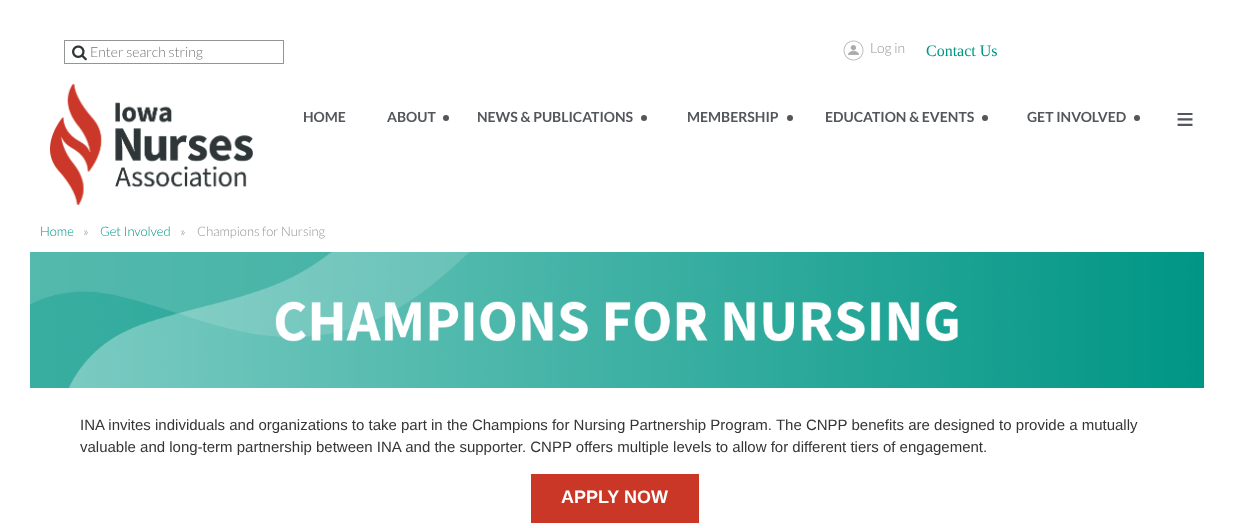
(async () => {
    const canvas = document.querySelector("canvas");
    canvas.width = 1234;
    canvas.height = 528;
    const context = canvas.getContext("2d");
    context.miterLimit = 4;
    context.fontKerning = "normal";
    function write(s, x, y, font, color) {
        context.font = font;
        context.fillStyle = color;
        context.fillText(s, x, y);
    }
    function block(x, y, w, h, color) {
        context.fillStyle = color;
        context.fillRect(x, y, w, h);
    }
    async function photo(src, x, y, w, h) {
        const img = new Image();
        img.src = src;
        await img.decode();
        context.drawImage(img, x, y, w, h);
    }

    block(0, 0, 1234, 528, "rgb(255, 255, 255)");
    context.strokeStyle = "rgb(148, 148, 147)";
    context.strokeRect(64.5, 40.5, 219, 23);
    await photo("media/1.png", 72, 45, 15, 16);
    write("Enter search string", 90, 57, "300 14px Lato", "rgb(117, 117, 117)");
    await photo("media/2.png", 843, 40, 21, 21);
    write("Log in", 870, 53, "300 14px Lato", "rgb(148, 148, 147)");
    write("Contact Us", 926, 56, "16px Liberation Serif", "rgb(0, 150, 133)");
    await photo("media/3.png", 50, 84, 203, 121);
    write("HOME", 303, 122, "bold 14px Lato", "rgb(83, 86, 90)");
    write("ABOUT", 387, 122, "bold 14px Lato", "rgb(83, 86, 90)");
    context.beginPath();
    context.arc(446, 118, 3, 0, Math.PI * 2);
    context.fill();
    write("NEWS & PUBLICATIONS", 477, 122, "bold 14px Lato", "rgb(83, 86, 90)");
    context.beginPath();
    context.arc(644, 118, 3, 0, Math.PI * 2);
    context.fill();
    write("MEMBERSHIP", 687, 122, "bold 14px Lato", "rgb(83, 86, 90)");
    context.beginPath();
    context.arc(790, 118, 3, 0, Math.PI * 2);
    context.fill();
    write("EDUCATION & EVENTS", 825, 122, "bold 14px Lato", "rgb(83, 86, 90)");
    context.beginPath();
    context.arc(985, 118, 3, 0, Math.PI * 2);
    context.fill();
    write("GET INVOLVED", 1027, 122, "bold 14px Lato", "rgb(83, 86, 90)");
    context.beginPath();
    context.arc(1137, 118, 3, 0, Math.PI * 2);
    context.fill();
    write("≡", 1176, 130, "bold 32px Liberation Serif", "rgb(83, 86, 90)");
    write("Home", 40, 236, "300 13px Lato", "rgb(0, 150, 133)");
    write("»", 83, 236, "300 13px Lato", "rgb(148, 148, 147)");
    write("Get Involved", 100, 236, "300 13px Lato", "rgb(0, 150, 133)");
    write("»", 180, 236, "300 13px Lato", "rgb(148, 148, 147)");
    write("Champions for Nursing", 197, 236, "300 13px Lato", "rgb(148, 148, 147)");
    await photo("media/4.png", 30, 252, 1174, 136);
    write("INA invites individuals and organizations to take part in the Champions for Nursing Partnership Program. The CNPP benefits are designed to provide a mutually", 80, 430, "15px Liberation Sans", "rgb(52, 53, 55)");
    write("valuable and long-term partnership between INA and the supporter. CNPP offers multiple levels to allow for different tiers of engagement.", 80, 452, "15px Liberation Sans", "rgb(52, 53, 55)");
    block(531, 474, 168, 49, "rgb(203, 55, 39)");
    write("APPLY NOW", 561, 503, "bold 18px Liberation Sans", "rgb(255, 255, 255)");
})();
